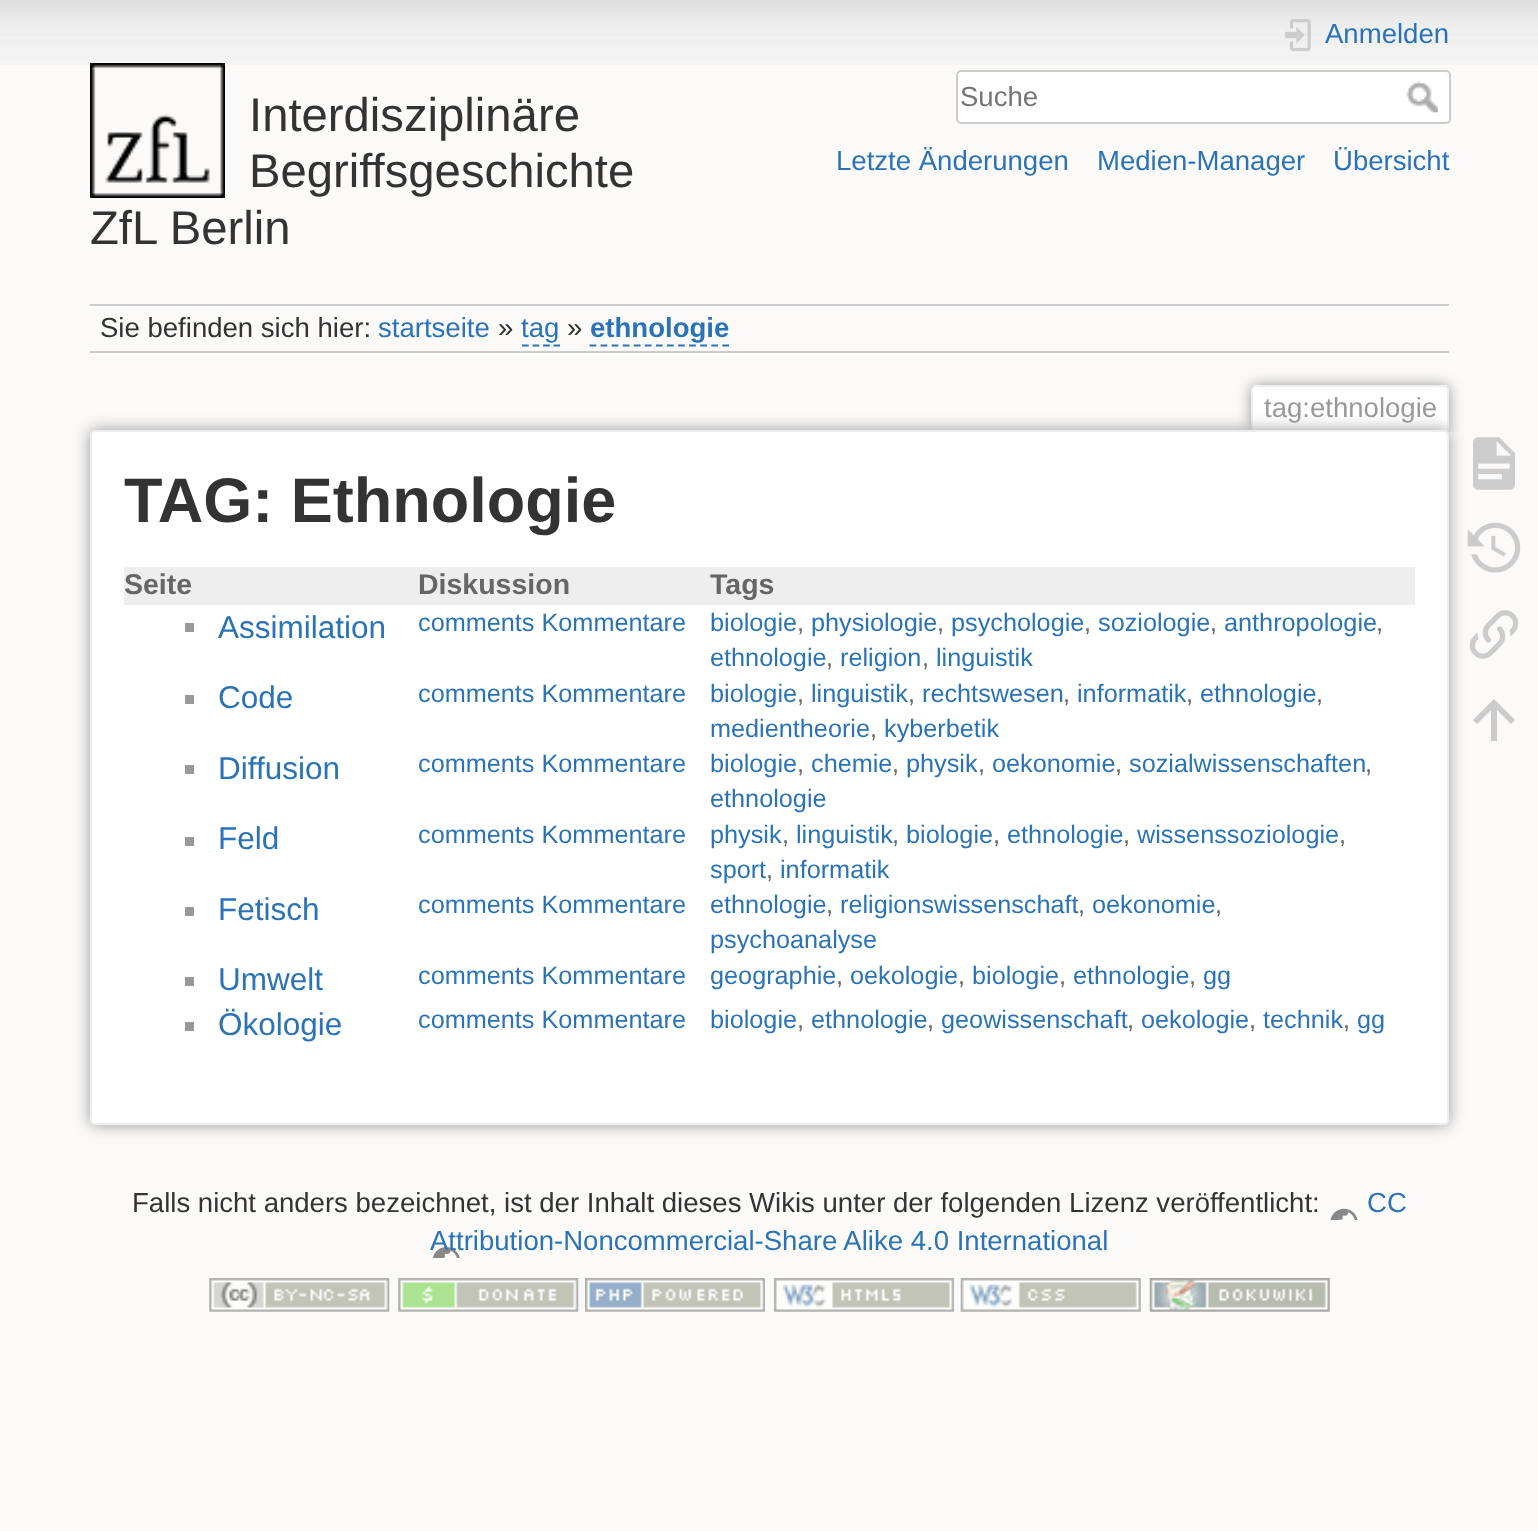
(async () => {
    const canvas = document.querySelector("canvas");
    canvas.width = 1538;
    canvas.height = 1531;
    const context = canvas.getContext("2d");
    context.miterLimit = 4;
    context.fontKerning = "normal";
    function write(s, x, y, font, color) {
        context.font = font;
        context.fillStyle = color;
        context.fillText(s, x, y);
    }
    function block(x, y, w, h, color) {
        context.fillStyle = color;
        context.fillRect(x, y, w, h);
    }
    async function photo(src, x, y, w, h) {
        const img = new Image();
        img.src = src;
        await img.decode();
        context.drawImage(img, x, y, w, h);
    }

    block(0, 0, 1538, 1531, "rgb(251, 250, 249)");
    await photo("media/1.png", 0, 0, 1538, 65);
    await photo("media/2.png", 90, 63, 135, 135);
    write("Interdisziplinäre", 249, 131, "47.25px Liberation Sans", "rgb(51, 51, 51)");
    write("Begriffsgeschichte", 249, 187, "47.25px Liberation Sans", "rgb(51, 51, 51)");
    write("ZfL Berlin", 90, 244, "47.25px Liberation Sans", "rgb(51, 51, 51)");
    await photo("media/3.png", 1285, 19, 26, 33);
    write("Anmelden", 1325, 43, "27.55px Liberation Sans", "rgb(43, 115, 183)");
    context.fillStyle = "rgb(255, 255, 255)";
    context.beginPath();
    context.roundRect(957, 71, 493, 52, 4);
    context.fill();
    context.strokeStyle = "rgb(204, 204, 204)";
    context.lineWidth = 2;
    context.stroke();
    write("Suche", 960, 106, "27.55px Liberation Sans", "rgb(117, 117, 117)");
    await photo("media/4.png", 1406, 81, 32, 32);
    write("Letzte Änderungen", 836, 170, "27.55px Liberation Sans", "rgb(43, 115, 183)");
    write("Medien-Manager", 1097, 170, "27.55px Liberation Sans", "rgb(43, 115, 183)");
    write("Übersicht", 1333, 170, "27.55px Liberation Sans", "rgb(43, 115, 183)");
    block(90, 304, 1359, 2, "rgb(204, 204, 204)");
    block(90, 353, 1359, 2, "rgb(255, 255, 255)");
    block(90, 306, 1359, 2, "rgb(255, 255, 255)");
    block(90, 351, 1359, 2, "rgb(204, 204, 204)");
    write("Sie befinden sich hier:", 100, 337, "27.55px Liberation Sans", "rgb(51, 51, 51)");
    write("startseite", 378, 337, "27.55px Liberation Sans", "rgb(43, 115, 183)");
    write("»", 498, 337, "27.55px Liberation Sans", "rgb(51, 51, 51)");
    write("tag", 521, 337, "27.55px Liberation Sans", "rgb(43, 115, 183)");
    context.beginPath();
    context.moveTo(522, 345.5);
    context.lineTo(560, 345.5);
    context.strokeStyle = "rgb(43, 115, 183)";
    context.lineWidth = 2.2;
    context.setLineDash([6.75, 3.76]);
    context.stroke();
    write("»", 567, 337, "27.55px Liberation Sans", "rgb(51, 51, 51)");
    write("ethnologie", 590, 337, "bold 27.55px Liberation Sans", "rgb(43, 115, 183)");
    context.beginPath();
    context.moveTo(589.5, 345.5);
    context.lineTo(729, 345.5);
    context.setLineDash([6.75, 4.32]);
    context.stroke();
    context.save();
    context.beginPath();
    context.rect(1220, 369, 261, 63);
    context.clip();
    context.fillStyle = "rgb(153, 153, 153)";
    context.filter = "blur(7px)";
    context.beginPath();
    context.roundRect(1251, 385, 198, 47, 5);
    context.fill();
    context.filter = "none";
    context.restore();
    context.fillStyle = "rgb(255, 255, 255)";
    context.beginPath();
    context.roundRect(1253, 387, 194, 45, [2, 2, 0, 0]);
    context.fill();
    block(1253, 385, 194, 2, "rgb(238, 238, 238)");
    block(1447, 387, 2, 45, "rgb(238, 238, 238)");
    block(1251, 387, 2, 45, "rgb(238, 238, 238)");
    write("tag:ethnologie", 1264, 417, "27.55px Liberation Sans", "rgb(153, 153, 153)");
    context.filter = "blur(8px)";
    context.beginPath();
    context.roundRect(90, 430, 1359, 695, 5);
    context.fill();
    context.filter = "none";
    context.fillStyle = "rgb(255, 255, 255)";
    context.beginPath();
    context.roundRect(91, 431, 1357, 693, 4);
    context.fill();
    context.strokeStyle = "rgb(238, 238, 238)";
    context.lineWidth = 2;
    context.setLineDash([]);
    context.stroke();
    write("TAG: Ethnologie", 124, 522, "bold 63px Liberation Sans", "rgb(51, 51, 51)");
    block(124, 567, 1291, 38, "rgb(238, 238, 238)");
    write("Seite", 124, 594, "bold 28.5px Liberation Sans", "rgb(102, 102, 102)");
    write("Diskussion", 418, 594, "bold 28.5px Liberation Sans", "rgb(102, 102, 102)");
    write("Tags", 710, 594, "bold 28.5px Liberation Sans", "rgb(102, 102, 102)");
    block(185, 623, 9, 9, "rgb(153, 153, 153)");
    write("Assimilation", 218, 638, "31.5px Liberation Sans", "rgb(43, 115, 183)");
    write("comments Kommentare", 418, 631, "25.25px Liberation Sans", "rgb(43, 115, 183)");
    write("biologie", 710, 631, "25.25px Liberation Sans", "rgb(43, 115, 183)");
    write(",", 797, 631, "25.25px Liberation Sans", "rgb(102, 102, 102)");
    write("physiologie", 811, 631, "25.25px Liberation Sans", "rgb(43, 115, 183)");
    write(",", 937, 631, "25.25px Liberation Sans", "rgb(102, 102, 102)");
    write("psychologie", 951, 631, "25.25px Liberation Sans", "rgb(43, 115, 183)");
    write(",", 1084, 631, "25.25px Liberation Sans", "rgb(102, 102, 102)");
    write("soziologie", 1098, 631, "25.25px Liberation Sans", "rgb(43, 115, 183)");
    write(",", 1210, 631, "25.25px Liberation Sans", "rgb(102, 102, 102)");
    write("anthropologie", 1224, 631, "25.25px Liberation Sans", "rgb(43, 115, 183)");
    write(",", 1376, 631, "25.25px Liberation Sans", "rgb(102, 102, 102)");
    write("ethnologie", 710, 666, "25.25px Liberation Sans", "rgb(43, 115, 183)");
    write(",", 826, 666, "25.25px Liberation Sans", "rgb(102, 102, 102)");
    write("religion", 840, 666, "25.25px Liberation Sans", "rgb(43, 115, 183)");
    write(",", 922, 666, "25.25px Liberation Sans", "rgb(102, 102, 102)");
    write("linguistik", 936, 666, "25.25px Liberation Sans", "rgb(43, 115, 183)");
    block(185, 695, 9, 9, "rgb(153, 153, 153)");
    write("Code", 218, 708, "31.5px Liberation Sans", "rgb(43, 115, 183)");
    write("comments Kommentare", 418, 702, "25.25px Liberation Sans", "rgb(43, 115, 183)");
    write("biologie", 710, 702, "25.25px Liberation Sans", "rgb(43, 115, 183)");
    write(",", 797, 702, "25.25px Liberation Sans", "rgb(102, 102, 102)");
    write("linguistik", 811, 702, "25.25px Liberation Sans", "rgb(43, 115, 183)");
    write(",", 908, 702, "25.25px Liberation Sans", "rgb(102, 102, 102)");
    write("rechtswesen", 922, 702, "25.25px Liberation Sans", "rgb(43, 115, 183)");
    write(",", 1063, 702, "25.25px Liberation Sans", "rgb(102, 102, 102)");
    write("informatik", 1077, 702, "25.25px Liberation Sans", "rgb(43, 115, 183)");
    write(",", 1186, 702, "25.25px Liberation Sans", "rgb(102, 102, 102)");
    write("ethnologie", 1200, 702, "25.25px Liberation Sans", "rgb(43, 115, 183)");
    write(",", 1316, 702, "25.25px Liberation Sans", "rgb(102, 102, 102)");
    write("medientheorie", 710, 737, "25.25px Liberation Sans", "rgb(43, 115, 183)");
    write(",", 870, 737, "25.25px Liberation Sans", "rgb(102, 102, 102)");
    write("kyberbetik", 884, 737, "25.25px Liberation Sans", "rgb(43, 115, 183)");
    block(185, 765, 9, 9, "rgb(153, 153, 153)");
    write("Diffusion", 218, 779, "31.5px Liberation Sans", "rgb(43, 115, 183)");
    write("comments Kommentare", 418, 772, "25.25px Liberation Sans", "rgb(43, 115, 183)");
    write("biologie", 710, 772, "25.25px Liberation Sans", "rgb(43, 115, 183)");
    write(",", 797, 772, "25.25px Liberation Sans", "rgb(102, 102, 102)");
    write("chemie", 811, 772, "25.25px Liberation Sans", "rgb(43, 115, 183)");
    write(",", 892, 772, "25.25px Liberation Sans", "rgb(102, 102, 102)");
    write("physik", 906, 772, "25.25px Liberation Sans", "rgb(43, 115, 183)");
    write(",", 978, 772, "25.25px Liberation Sans", "rgb(102, 102, 102)");
    write("oekonomie", 992, 772, "25.25px Liberation Sans", "rgb(43, 115, 183)");
    write(",", 1115, 772, "25.25px Liberation Sans", "rgb(102, 102, 102)");
    write("sozialwissenschaften", 1129, 772, "25.25px Liberation Sans", "rgb(43, 115, 183)");
    write(",", 1365, 772, "25.25px Liberation Sans", "rgb(102, 102, 102)");
    write("ethnologie", 710, 807, "25.25px Liberation Sans", "rgb(43, 115, 183)");
    block(185, 837, 9, 9, "rgb(153, 153, 153)");
    write("Feld", 218, 849, "31.5px Liberation Sans", "rgb(43, 115, 183)");
    write("comments Kommentare", 418, 843, "25.25px Liberation Sans", "rgb(43, 115, 183)");
    write("physik", 710, 843, "25.25px Liberation Sans", "rgb(43, 115, 183)");
    write(",", 782, 843, "25.25px Liberation Sans", "rgb(102, 102, 102)");
    write("linguistik", 796, 843, "25.25px Liberation Sans", "rgb(43, 115, 183)");
    write(",", 892, 843, "25.25px Liberation Sans", "rgb(102, 102, 102)");
    write("biologie", 906, 843, "25.25px Liberation Sans", "rgb(43, 115, 183)");
    write(",", 993, 843, "25.25px Liberation Sans", "rgb(102, 102, 102)");
    write("ethnologie", 1007, 843, "25.25px Liberation Sans", "rgb(43, 115, 183)");
    write(",", 1123, 843, "25.25px Liberation Sans", "rgb(102, 102, 102)");
    write("wissenssoziologie", 1137, 843, "25.25px Liberation Sans", "rgb(43, 115, 183)");
    write(",", 1339, 843, "25.25px Liberation Sans", "rgb(102, 102, 102)");
    write("sport", 710, 878, "25.25px Liberation Sans", "rgb(43, 115, 183)");
    write(",", 766, 878, "25.25px Liberation Sans", "rgb(102, 102, 102)");
    write("informatik", 780, 878, "25.25px Liberation Sans", "rgb(43, 115, 183)");
    block(185, 907, 9, 9, "rgb(153, 153, 153)");
    write("Fetisch", 218, 920, "31.5px Liberation Sans", "rgb(43, 115, 183)");
    write("comments Kommentare", 418, 913, "25.25px Liberation Sans", "rgb(43, 115, 183)");
    write("ethnologie", 710, 913, "25.25px Liberation Sans", "rgb(43, 115, 183)");
    write(",", 826, 913, "25.25px Liberation Sans", "rgb(102, 102, 102)");
    write("religionswissenschaft", 840, 913, "25.25px Liberation Sans", "rgb(43, 115, 183)");
    write(",", 1078, 913, "25.25px Liberation Sans", "rgb(102, 102, 102)");
    write("oekonomie", 1092, 913, "25.25px Liberation Sans", "rgb(43, 115, 183)");
    write(",", 1215, 913, "25.25px Liberation Sans", "rgb(102, 102, 102)");
    write("psychoanalyse", 710, 948, "25.25px Liberation Sans", "rgb(43, 115, 183)");
    block(185, 977, 9, 9, "rgb(153, 153, 153)");
    write("Umwelt", 218, 990, "31.5px Liberation Sans", "rgb(43, 115, 183)");
    write("comments Kommentare", 418, 984, "25.25px Liberation Sans", "rgb(43, 115, 183)");
    write("geographie", 710, 984, "25.25px Liberation Sans", "rgb(43, 115, 183)");
    write(",", 836, 984, "25.25px Liberation Sans", "rgb(102, 102, 102)");
    write("oekologie", 850, 984, "25.25px Liberation Sans", "rgb(43, 115, 183)");
    write(",", 958, 984, "25.25px Liberation Sans", "rgb(102, 102, 102)");
    write("biologie", 972, 984, "25.25px Liberation Sans", "rgb(43, 115, 183)");
    write(",", 1059, 984, "25.25px Liberation Sans", "rgb(102, 102, 102)");
    write("ethnologie", 1073, 984, "25.25px Liberation Sans", "rgb(43, 115, 183)");
    write(",", 1189, 984, "25.25px Liberation Sans", "rgb(102, 102, 102)");
    write("gg", 1203, 984, "25.25px Liberation Sans", "rgb(43, 115, 183)");
    block(185, 1022, 9, 9, "rgb(153, 153, 153)");
    write("Ökologie", 218, 1035, "31.5px Liberation Sans", "rgb(43, 115, 183)");
    write("comments Kommentare", 418, 1028, "25.25px Liberation Sans", "rgb(43, 115, 183)");
    write("biologie", 710, 1028, "25.25px Liberation Sans", "rgb(43, 115, 183)");
    write(",", 797, 1028, "25.25px Liberation Sans", "rgb(102, 102, 102)");
    write("ethnologie", 811, 1028, "25.25px Liberation Sans", "rgb(43, 115, 183)");
    write(",", 927, 1028, "25.25px Liberation Sans", "rgb(102, 102, 102)");
    write("geowissenschaft", 941, 1028, "25.25px Liberation Sans", "rgb(43, 115, 183)");
    write(",", 1127, 1028, "25.25px Liberation Sans", "rgb(102, 102, 102)");
    write("oekologie", 1141, 1028, "25.25px Liberation Sans", "rgb(43, 115, 183)");
    write(",", 1249, 1028, "25.25px Liberation Sans", "rgb(102, 102, 102)");
    write("technik", 1263, 1028, "25.25px Liberation Sans", "rgb(43, 115, 183)");
    write(",", 1343, 1028, "25.25px Liberation Sans", "rgb(102, 102, 102)");
    write("gg", 1357, 1028, "25.25px Liberation Sans", "rgb(43, 115, 183)");
    await photo("media/5.png", 1473, 437, 42, 53);
    await photo("media/6.png", 1467, 522, 54, 51);
    await photo("media/7.png", 1469, 610, 50, 49);
    context.fillStyle = "rgb(204, 204, 204)";
    context.beginPath();
    context.moveTo(1497, 741);
    context.lineTo(1491, 741);
    context.lineTo(1491, 710);
    context.lineTo(1477, 724);
    context.lineTo(1473, 720);
    context.lineTo(1494, 699);
    context.lineTo(1515, 720);
    context.lineTo(1511, 724);
    context.lineTo(1497, 710);
    context.closePath();
    context.fill();
    write("Falls nicht anders bezeichnet, ist der Inhalt dieses Wikis unter der folgenden Lizenz veröffentlicht:", 132, 1212, "27.55px Liberation Sans", "rgb(51, 51, 51)");
    write("CC", 1367, 1212, "27.55px Liberation Sans", "rgb(43, 115, 183)");
    await photo("media/8.png", 432, 1208, 926, 50);
    write("Attribution-Noncommercial-Share Alike 4.0 International", 430, 1250, "27.55px Liberation Sans", "rgb(43, 115, 183)");
    await photo("media/9.png", 209, 1278, 181, 34);
    await photo("media/10.png", 398, 1278, 181, 34);
    await photo("media/11.png", 585, 1278, 180, 34);
    await photo("media/12.png", 774, 1278, 180, 34);
    await photo("media/13.png", 960, 1278, 181, 34);
    await photo("media/14.png", 1149, 1278, 181, 34);
})();
